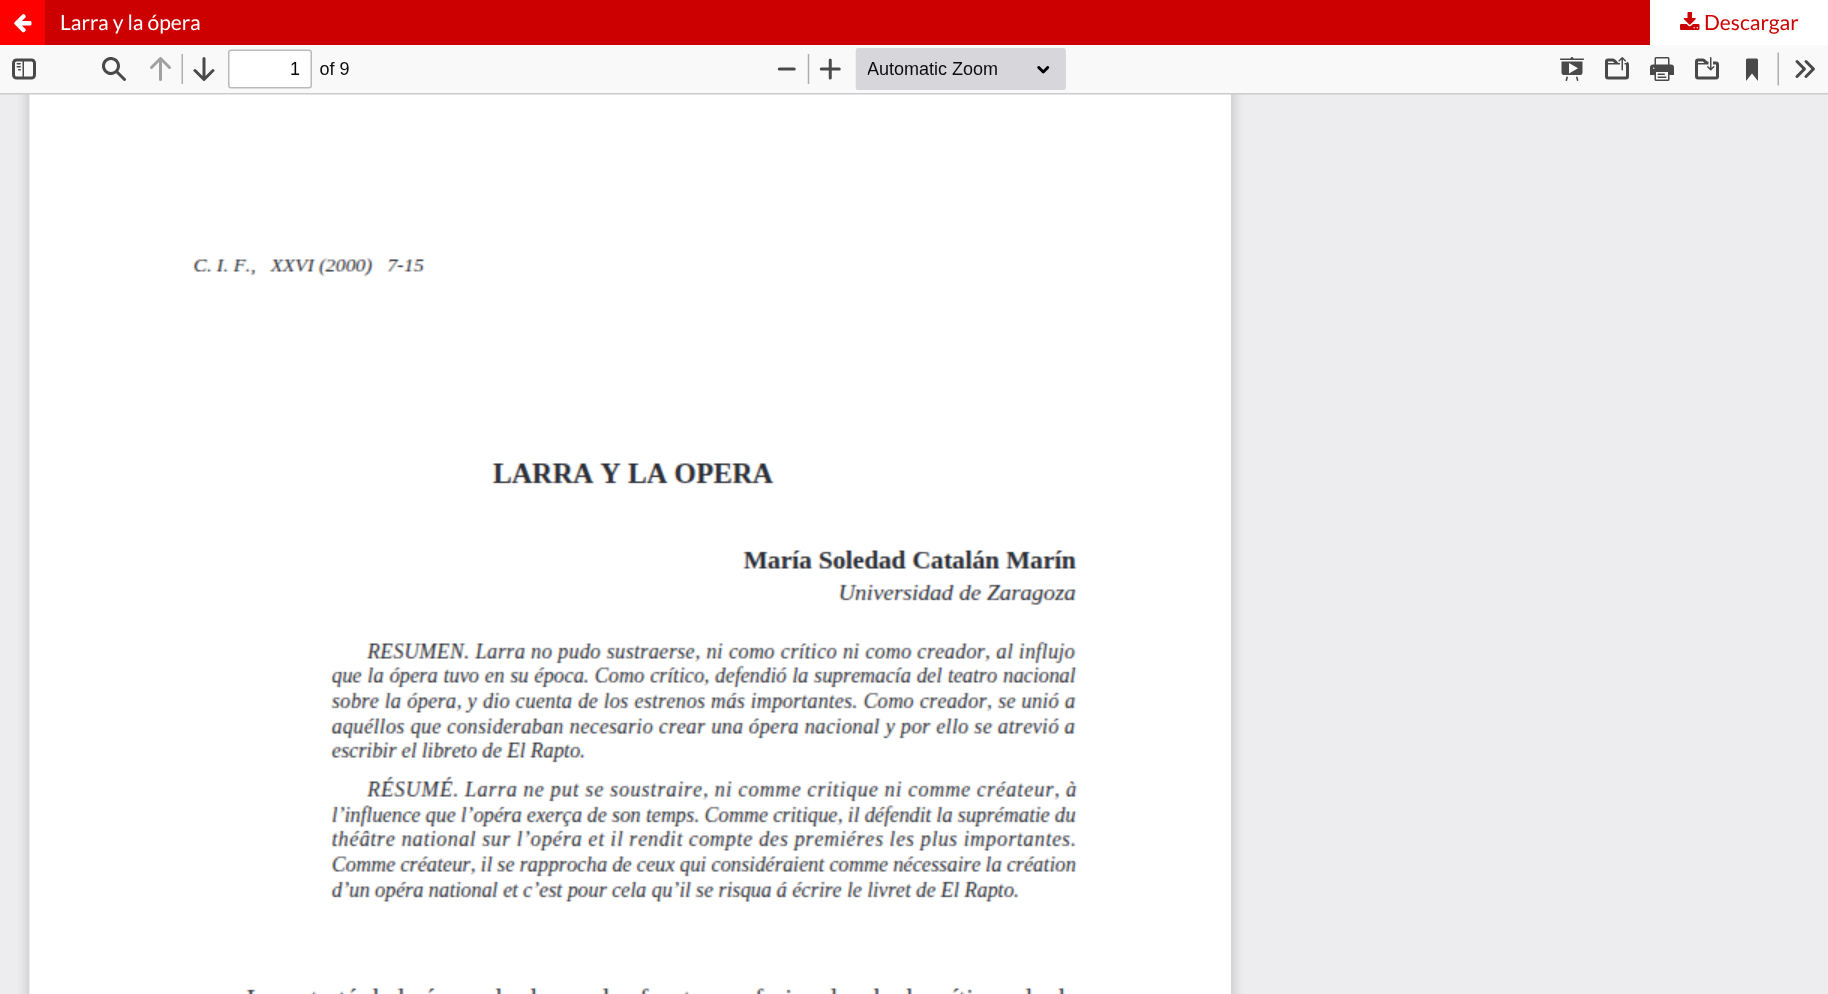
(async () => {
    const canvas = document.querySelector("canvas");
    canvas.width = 1828;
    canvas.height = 994;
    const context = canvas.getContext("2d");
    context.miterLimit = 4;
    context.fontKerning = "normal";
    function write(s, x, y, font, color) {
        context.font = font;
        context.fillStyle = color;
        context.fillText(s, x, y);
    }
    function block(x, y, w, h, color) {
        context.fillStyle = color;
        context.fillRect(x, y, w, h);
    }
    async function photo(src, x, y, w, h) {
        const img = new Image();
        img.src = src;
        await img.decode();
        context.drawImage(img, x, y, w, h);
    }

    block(0, 0, 1828, 994, "rgb(255, 255, 255)");
    block(45, 0, 1605, 45, "rgb(204, 0, 0)");
    block(0, 0, 45, 45, "rgb(255, 0, 0)");
    await photo("media/1.png", 14, 14, 18, 19);
    write("Larra y la ópera", 60, 30, "21px Lato", "rgb(255, 255, 255)");
    await photo("media/2.png", 1680, 12, 20, 18);
    write("Descargar", 1704, 30, "21px Lato", "rgb(204, 0, 0)");
    await photo("media/3.png", 0, 45, 1828, 949);
})();
